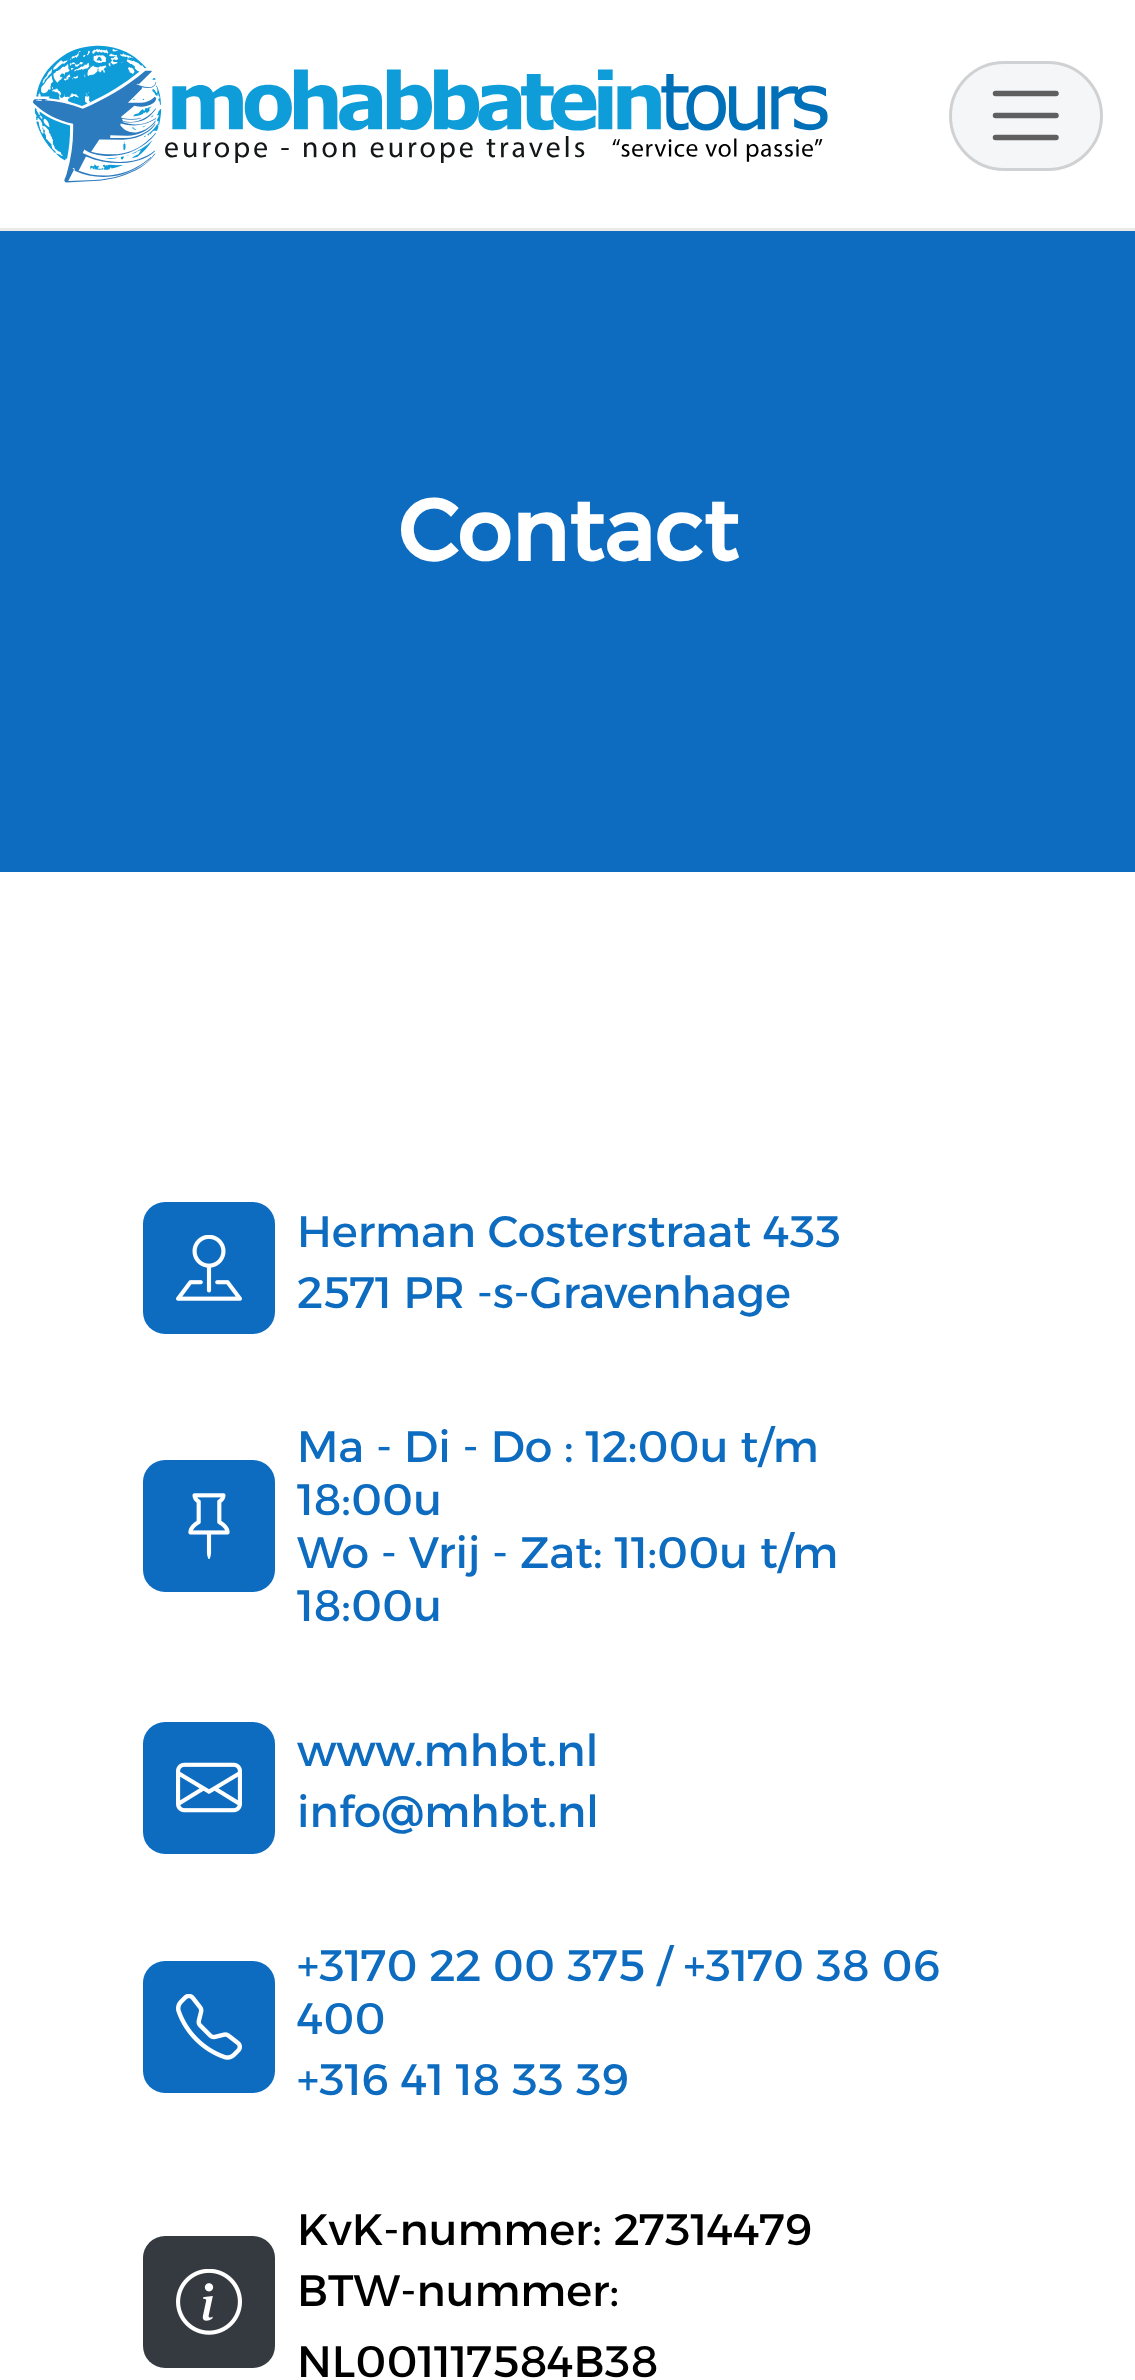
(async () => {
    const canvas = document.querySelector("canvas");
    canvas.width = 1135;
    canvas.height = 2380;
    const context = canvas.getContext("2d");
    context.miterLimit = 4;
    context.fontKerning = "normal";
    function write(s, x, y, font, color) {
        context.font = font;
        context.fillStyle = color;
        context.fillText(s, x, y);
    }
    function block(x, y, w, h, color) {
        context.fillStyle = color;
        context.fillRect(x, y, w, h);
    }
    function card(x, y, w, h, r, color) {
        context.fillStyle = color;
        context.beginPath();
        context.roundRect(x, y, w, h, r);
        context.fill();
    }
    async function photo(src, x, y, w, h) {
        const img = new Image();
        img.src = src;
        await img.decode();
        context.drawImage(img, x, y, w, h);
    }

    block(0, 0, 1135, 2380, "rgb(255, 255, 255)");
    block(0, 228, 1135, 3, "rgb(234, 234, 234)");
    await photo("media/1.png", 33, 45, 795, 138);
    card(949, 61, 154, 110, 55, "rgb(245, 246, 248)");
    context.beginPath();
    context.roundRect(950.5, 62.5, 151, 107, 53.5);
    context.strokeStyle = "rgba(0, 0, 0, 0.15)";
    context.lineWidth = 3;
    context.stroke();
    context.beginPath();
    context.moveTo(995.5, 93.5);
    context.lineTo(1056, 93.5);
    context.moveTo(995.5, 115.5);
    context.lineTo(1056, 115.5);
    context.moveTo(995.5, 137.5);
    context.lineTo(1056, 137.5);
    context.strokeStyle = "rgb(95, 95, 96)";
    context.lineWidth = 5.5;
    context.lineCap = "round";
    context.stroke();
    block(0, 231, 1135, 641, "rgb(13, 108, 191)");
    write("Contact", 398, 561, "bold 86.5px Alexandria", "rgb(255, 255, 255)");
    card(143, 1202, 132, 132, 22, "rgb(13, 108, 191)");
    await photo("media/2.png", 176, 1235, 66, 66);
    write("Herman Costerstraat 433", 297, 1247, "44px Alexandria", "rgb(13, 108, 191)");
    write("2571 PR -s-Gravenhage", 297, 1308, "44px Alexandria", "rgb(13, 108, 191)");
    card(143, 1460, 132, 132, 22, "rgb(13, 108, 191)");
    await photo("media/3.png", 188, 1493, 42, 66);
    write("Ma - Di - Do : 12:00u t/m", 297, 1462, "44px Alexandria", "rgb(13, 108, 191)");
    write("18:00u", 297, 1515, "44px Alexandria", "rgb(13, 108, 191)");
    write("Wo - Vrij - Zat: 11:00u t/m", 297, 1568, "44px Alexandria", "rgb(13, 108, 191)");
    write("18:00u", 297, 1621, "44px Alexandria", "rgb(13, 108, 191)");
    card(143, 1722, 132, 132, 22, "rgb(13, 108, 191)");
    await photo("media/4.png", 176, 1762, 66, 51);
    write("www.mhbt.nl", 297, 1766, "44px Alexandria", "rgb(13, 108, 191)");
    write("info@mhbt.nl", 297, 1827, "44px Alexandria", "rgb(13, 108, 191)");
    card(143, 1961, 132, 132, 22, "rgb(13, 108, 191)");
    await photo("media/5.png", 176, 1994, 66, 66);
    write("+3170 22 00 375 / +3170 38 06", 297, 1981, "44px Alexandria", "rgb(13, 108, 191)");
    write("400", 297, 2034, "44px Alexandria", "rgb(13, 108, 191)");
    write("+316 41 18 33 39", 297, 2095, "44px Alexandria", "rgb(13, 108, 191)");
    card(143, 2236, 132, 132, 22, "rgb(52, 58, 64)");
    await photo("media/6.png", 176, 2269, 66, 66);
    write("KvK-nummer: 27314479", 297, 2245, "44px Alexandria", "rgb(0, 0, 0)");
    write("BTW-nummer:", 297, 2306, "44px Alexandria", "rgb(0, 0, 0)");
    write("NL001117584B38", 297, 2377, "44px Alexandria", "rgb(0, 0, 0)");
})();
